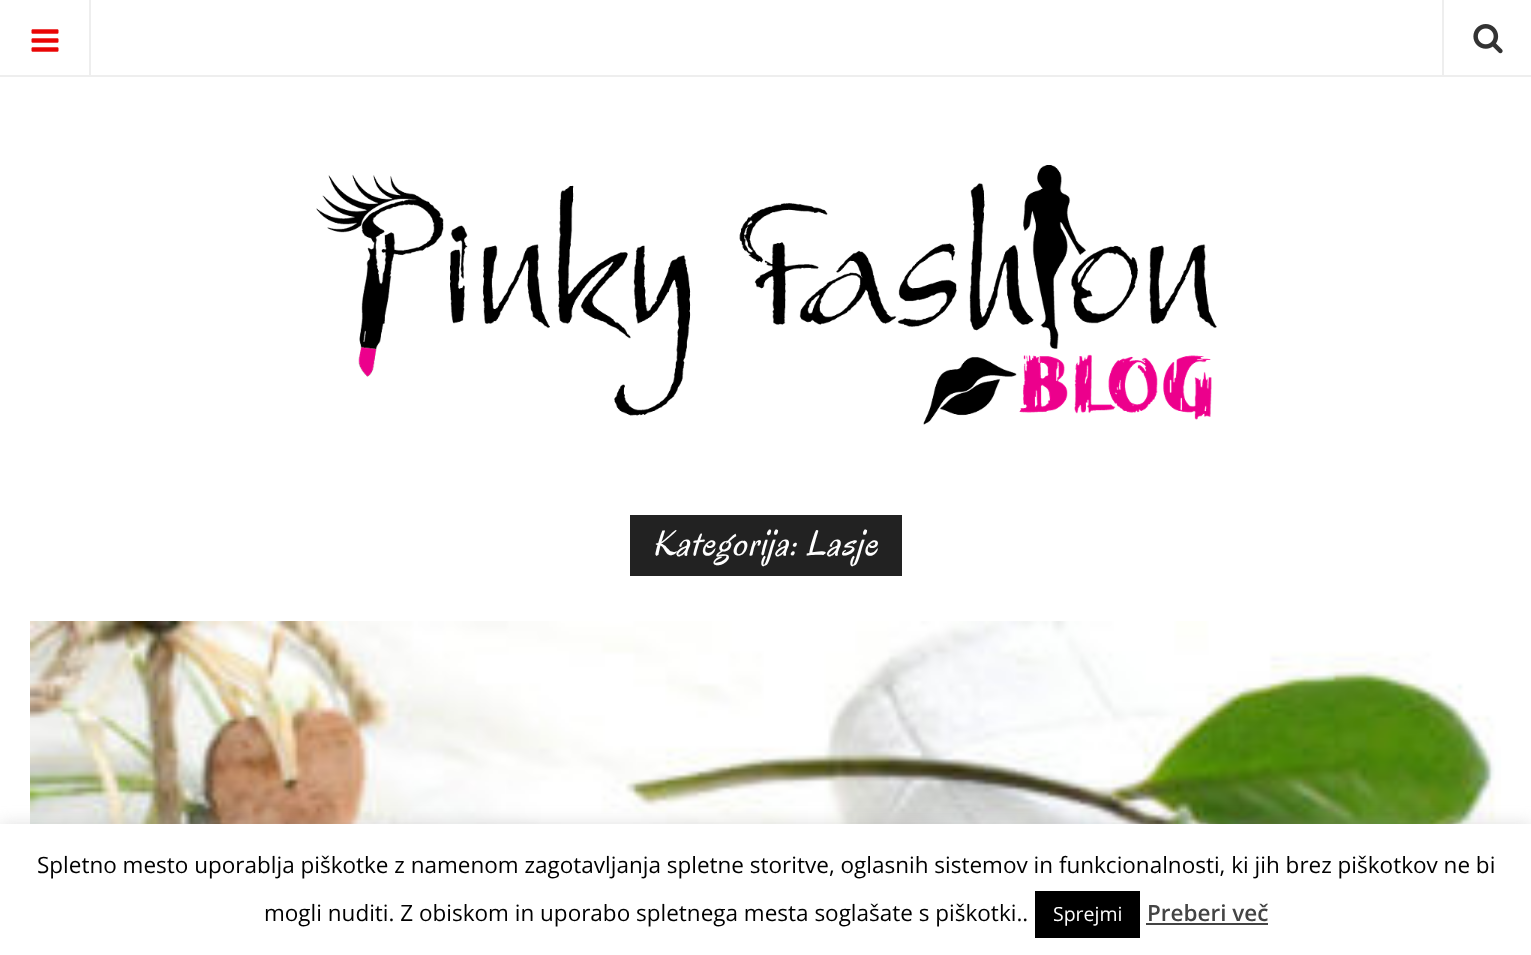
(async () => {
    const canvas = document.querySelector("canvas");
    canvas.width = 1531;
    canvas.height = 955;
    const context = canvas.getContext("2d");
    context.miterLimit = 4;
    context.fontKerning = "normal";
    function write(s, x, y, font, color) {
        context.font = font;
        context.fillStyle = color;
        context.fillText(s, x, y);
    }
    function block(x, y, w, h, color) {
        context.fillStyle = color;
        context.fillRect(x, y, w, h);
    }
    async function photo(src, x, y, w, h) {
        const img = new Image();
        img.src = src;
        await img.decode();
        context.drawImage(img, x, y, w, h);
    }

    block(0, 0, 1531, 955, "rgb(255, 255, 255)");
    block(0, 75, 1531, 2, "rgb(238, 238, 238)");
    block(89, 0, 2, 75, "rgb(238, 238, 238)");
    await photo("media/1.png", 31, 29, 28, 23);
    block(1442, 0, 2, 75, "rgb(238, 238, 238)");
    await photo("media/2.png", 1473, 24, 30, 30);
    await photo("media/3.png", 316, 165, 901, 260);
    block(630, 515, 272, 61, "rgb(34, 34, 34)");
    context.letterSpacing = "1.5px";
    write("Kategorija: Lasje", 652, 555, "italic 36px Oregano", "rgb(255, 255, 255)");
    await photo("media/4.png", 30, 621, 1472, 203);
    context.fillStyle = "rgba(172, 171, 171, 0.3)";
    context.filter = "blur(7.5px)";
    context.beginPath();
    context.rect(0, 822, 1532, 132);
    context.fill();
    context.filter = "none";
    block(0, 824, 1531, 131, "rgb(255, 255, 255)");
    context.letterSpacing = "0px";
    write("Spletno mesto uporablja piškotke z namenom zagotavljanja spletne storitve, oglasnih sistemov in funkcionalnosti, ki jih brez piškotkov ne bi", 37, 873, "22.5px Open Sans", "rgb(0, 0, 0)");
    write("mogli nuditi. Z obiskom in uporabo spletnega mesta soglašate s piškotki..", 264, 921, "22.5px Open Sans", "rgb(0, 0, 0)");
    block(1035, 891, 105, 47, "rgb(0, 0, 0)");
    write("Sprejmi", 1053, 921, "19.5px Open Sans", "rgb(255, 255, 255)");
    write("Preberi več", 1147, 921, "600 22.5px Open Sans", "rgb(68, 68, 68)");
    block(1146, 923, 122, 2, "rgb(68, 68, 68)");
})();
